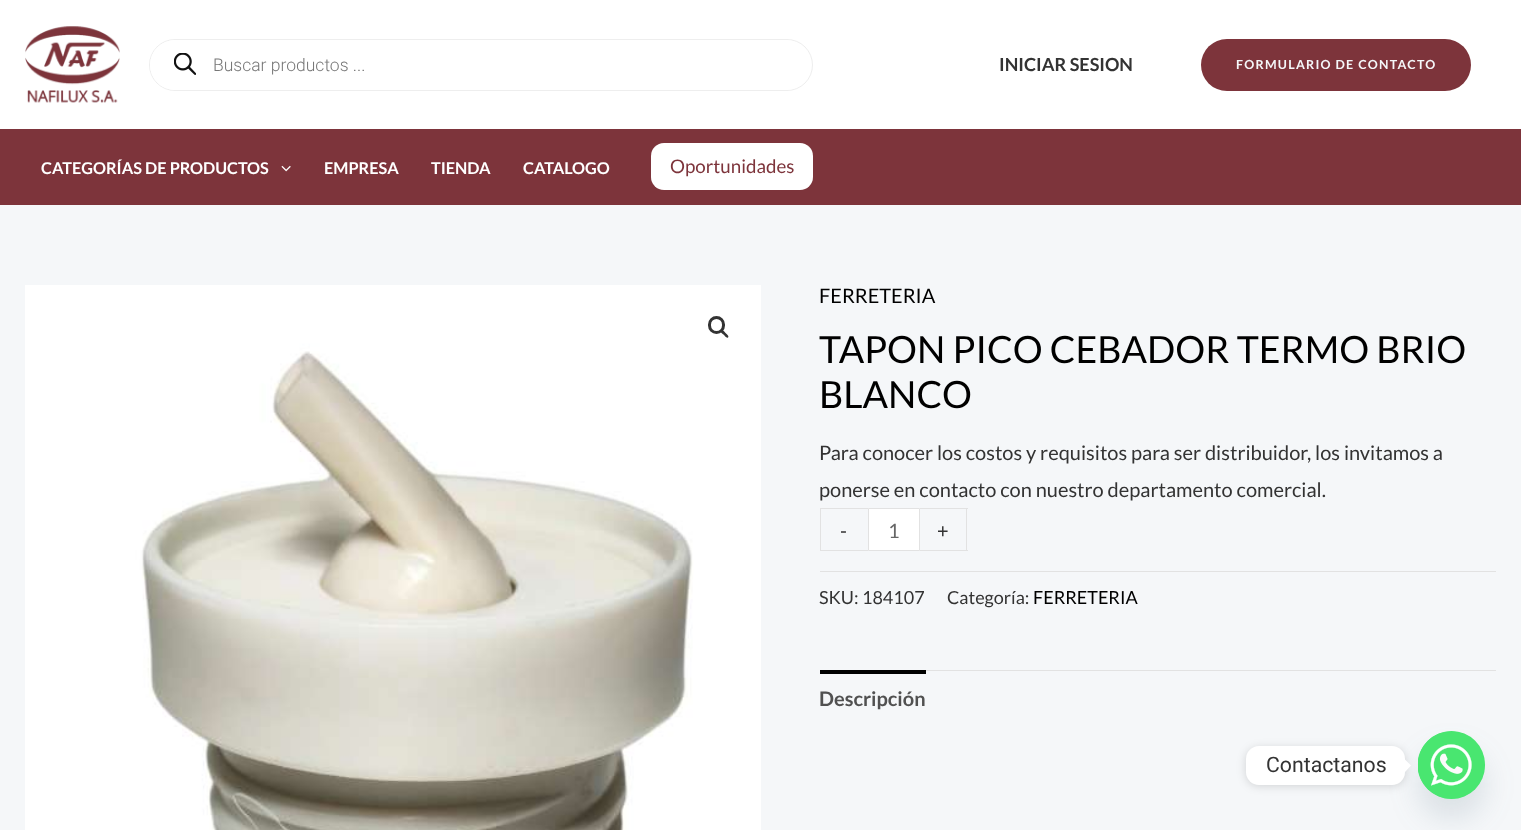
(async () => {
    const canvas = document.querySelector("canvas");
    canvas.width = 1521;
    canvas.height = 830;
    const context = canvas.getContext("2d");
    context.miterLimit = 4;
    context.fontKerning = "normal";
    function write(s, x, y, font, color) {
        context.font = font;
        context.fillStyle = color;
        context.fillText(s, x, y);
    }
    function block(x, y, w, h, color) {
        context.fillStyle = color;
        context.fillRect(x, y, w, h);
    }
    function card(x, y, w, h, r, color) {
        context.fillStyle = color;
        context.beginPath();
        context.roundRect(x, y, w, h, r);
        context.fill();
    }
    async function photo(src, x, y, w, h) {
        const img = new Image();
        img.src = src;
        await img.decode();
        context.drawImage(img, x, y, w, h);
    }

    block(0, 0, 1521, 830, "rgb(245, 247, 249)");
    block(0, 0, 1521, 129, "rgb(255, 255, 255)");
    await photo("media/1.png", 25, 26, 95, 77);
    context.beginPath();
    context.roundRect(149.5, 39.5, 663, 51, 25.5);
    context.strokeStyle = "rgb(238, 238, 238)";
    context.stroke();
    card(150, 40, 661, 50, 25, "rgb(255, 255, 255)");
    await photo("media/2.png", 174, 53, 22, 22);
    write("Buscar productos ...", 213, 71, "300 17.5px Roboto", "rgb(119, 119, 119)");
    write("INICIAR SESION", 999, 71, "bold 18px Lato", "rgb(51, 51, 51)");
    card(1201, 39, 270, 52, 26, "rgb(125, 52, 59)");
    context.letterSpacing = "1.25px";
    write("FORMULARIO DE CONTACTO", 1236, 69, "bold 12.5px Lato", "rgb(245, 247, 249)");
    block(0, 129, 1521, 76, "rgb(125, 52, 59)");
    context.letterSpacing = "0px";
    write("CATEGORÍAS DE PRODUCTOS", 41, 174, "bold 16.25px Lato", "rgb(255, 255, 255)");
    await photo("media/3.png", 281, 165, 10, 7);
    write("EMPRESA", 324, 174, "bold 16.25px Lato", "rgb(255, 255, 255)");
    write("TIENDA", 431, 174, "bold 16.25px Lato", "rgb(255, 255, 255)");
    write("CATALOGO", 523, 174, "bold 16.25px Lato", "rgb(255, 255, 255)");
    card(651, 143, 162, 47, 13, "rgb(255, 255, 255)");
    write("Oportunidades", 670, 173, "18.75px Lato", "rgb(125, 52, 59)");
    await photo("media/4.png", 25, 285, 736, 545);
    context.beginPath();
    context.roundRect(709.5, 317.5, 14, 15, 7);
    context.strokeStyle = "rgb(51, 51, 51)";
    context.lineWidth = 3;
    context.stroke();
    context.fillStyle = "rgb(51, 51, 51)";
    context.beginPath();
    context.moveTo(721, 330);
    context.bezierCurveTo(722.5, 329, 724.5, 332, 725.5, 333);
    context.bezierCurveTo(726, 333.5, 729.5, 336, 728, 337.5);
    context.bezierCurveTo(726.5, 338.5, 724.5, 335.5, 723.5, 334.5);
    context.bezierCurveTo(722.5, 334, 719.5, 331.5, 721, 330);
    context.closePath();
    context.fill();
    write("FERRETERIA", 819, 303, "20px Lato", "rgb(0, 0, 0)");
    write("TAPON PICO CEBADOR TERMO BRIO", 819, 363, "37.5px Lato", "rgb(0, 0, 0)");
    write("BLANCO", 819, 408, "37.5px Lato", "rgb(0, 0, 0)");
    write("Para conocer los costos y requisitos para ser distribuidor, los invitamos a", 819, 460, "20px Lato", "rgb(51, 51, 51)");
    write("ponerse en contacto con nuestro departamento comercial.", 819, 497, "20px Lato", "rgb(51, 51, 51)");
    block(820, 508, 48, 1, "rgb(226, 226, 226)");
    block(820, 550, 48, 1, "rgb(226, 226, 226)");
    block(820, 508, 1, 43, "rgb(226, 226, 226)");
    write("-", 840, 538, "20px Lato", "rgb(51, 51, 51)");
    context.fillStyle = "rgb(255, 255, 255)";
    context.beginPath();
    context.rect(868.5, 508.5, 51, 42);
    context.fill();
    context.strokeStyle = "rgb(226, 226, 226)";
    context.lineWidth = 1;
    context.stroke();
    write("1", 888, 538, "20px Lato", "rgb(102, 102, 102)");
    block(920, 508, 48, 1, "rgb(226, 226, 226)");
    block(966, 508, 1, 43, "rgb(226, 226, 226)");
    block(920, 550, 48, 1, "rgb(226, 226, 226)");
    write("+", 937, 538, "20px Lato", "rgb(51, 51, 51)");
    block(820, 571, 676, 1, "rgb(226, 226, 226)");
    write("SKU: 184107", 819, 604, "18px Lato", "rgb(51, 51, 51)");
    write("Categoría:", 947, 604, "18px Lato", "rgb(51, 51, 51)");
    write("FERRETERIA", 1033, 604, "18px Lato", "rgb(0, 0, 0)");
    block(926, 670, 570, 1, "rgb(226, 226, 226)");
    block(820, 670, 106, 4, "rgb(0, 0, 0)");
    write("Descripción", 819, 706, "bold 20px Lato", "rgb(81, 81, 81)");
    context.fillStyle = "rgba(73, 104, 126, 0.16)";
    context.filter = "blur(15px)";
    context.beginPath();
    context.roundRect(1418, 751, 67, 68, 33.5);
    context.fill();
    context.filter = "none";
    card(1418, 731, 67, 68, 33.5, "rgb(73, 230, 112)");
    await photo("media/5.png", 1418, 731, 67, 68);
    context.fillStyle = "rgba(0, 0, 0, 0.15)";
    context.filter = "blur(5px)";
    context.beginPath();
    context.roundRect(1246, 748, 159, 38, 13);
    context.fill();
    context.filter = "none";
    card(1246, 746, 159, 39, 13, "rgb(255, 255, 255)");
    write("Contactanos", 1266, 772, "21.25px Roboto", "rgb(51, 51, 51)");
    context.fillStyle = "rgb(255, 255, 255)";
    context.beginPath();
    context.moveTo(1405, 772);
    context.lineTo(1405, 759.5);
    context.lineTo(1411, 765.5);
    context.closePath();
    context.fill();
})();
